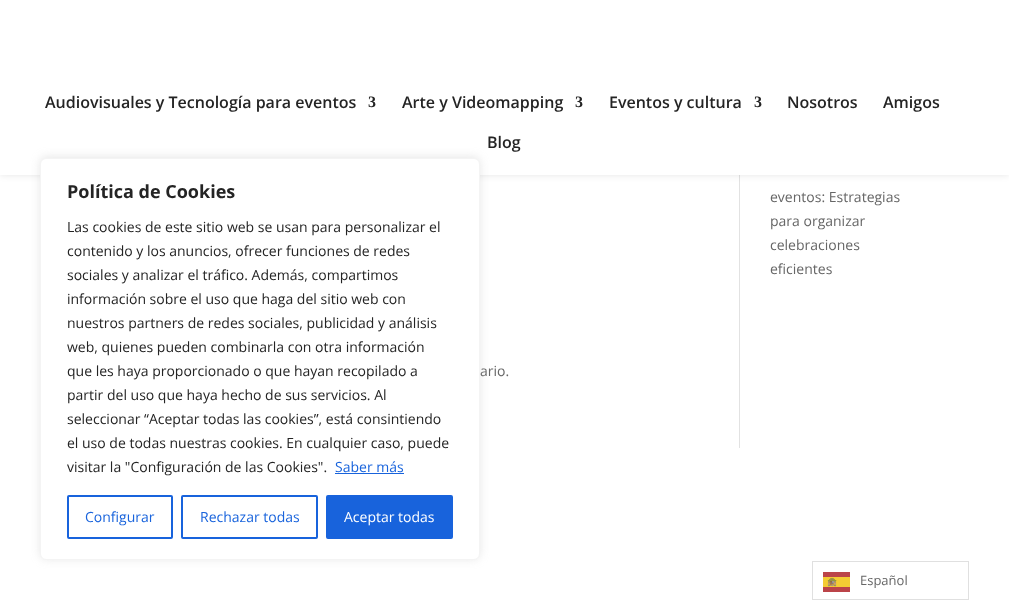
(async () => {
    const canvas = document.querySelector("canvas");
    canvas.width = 1009;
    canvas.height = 600;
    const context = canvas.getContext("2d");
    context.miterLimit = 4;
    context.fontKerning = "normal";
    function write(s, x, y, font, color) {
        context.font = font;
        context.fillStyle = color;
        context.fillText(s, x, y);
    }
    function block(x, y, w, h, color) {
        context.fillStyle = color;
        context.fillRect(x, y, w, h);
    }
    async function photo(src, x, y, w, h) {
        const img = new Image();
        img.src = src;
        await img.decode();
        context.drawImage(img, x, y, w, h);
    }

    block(0, 0, 1009, 600, "rgb(255, 255, 255)");
    block(739, 175, 1, 273, "rgb(226, 226, 226)");
    context.fillStyle = "rgba(0, 0, 0, 0.1)";
    context.filter = "blur(3.5px)";
    context.beginPath();
    context.rect(0, 0, 1009, 175);
    context.fill();
    context.filter = "none";
    block(0, 0, 1009, 175, "rgb(255, 255, 255)");
    write("Audiovisuales y Tecnología para eventos", 45, 108, "600 16px Open Sans", "rgb(36, 36, 36)");
    write("3", 368, 107, "bold 16px Liberation Serif", "rgb(36, 36, 36)");
    write("Arte y Videomapping", 402, 108, "600 16px Open Sans", "rgb(36, 36, 36)");
    write("3", 575, 107, "bold 16px Liberation Serif", "rgb(36, 36, 36)");
    write("Eventos y cultura", 609, 108, "600 16px Open Sans", "rgb(36, 36, 36)");
    write("3", 754, 107, "bold 16px Liberation Serif", "rgb(36, 36, 36)");
    write("Nosotros", 787, 108, "600 16px Open Sans", "rgb(36, 36, 36)");
    write("Amigos", 883, 108, "600 16px Open Sans", "rgb(36, 36, 36)");
    write("Blog", 487, 148, "600 16px Open Sans", "rgb(36, 36, 36)");
    write("eventos: Estrategias", 770, 202, "14px Open Sans", "rgb(102, 102, 102)");
    write("para organizar", 770, 226, "14px Open Sans", "rgb(102, 102, 102)");
    write("celebraciones", 770, 250, "14px Open Sans", "rgb(102, 102, 102)");
    write("eficientes", 770, 274, "14px Open Sans", "rgb(102, 102, 102)");
    write("ario.", 480, 376, "14px Open Sans", "rgb(102, 102, 102)");
    context.fillStyle = "rgba(172, 171, 171, 0.3)";
    context.filter = "blur(5px)";
    context.beginPath();
    context.roundRect(40, 157, 440, 402, 6);
    context.fill();
    context.filter = "none";
    context.fillStyle = "rgb(255, 255, 255)";
    context.beginPath();
    context.roundRect(40.5, 158.5, 439, 401, 5.5);
    context.fill();
    context.strokeStyle = "rgb(244, 244, 244)";
    context.stroke();
    write("Política de Cookies", 67, 198, "bold 18px Open Sans", "rgb(36, 36, 36)");
    write("Las cookies de este sitio web se usan para personalizar el", 67, 232, "14px Open Sans", "rgb(36, 36, 36)");
    write("contenido y los anuncios, ofrecer funciones de redes", 67, 256, "14px Open Sans", "rgb(36, 36, 36)");
    write("sociales y analizar el tráfico. Además, compartimos", 67, 280, "14px Open Sans", "rgb(36, 36, 36)");
    write("información sobre el uso que haga del sitio web con", 67, 304, "14px Open Sans", "rgb(36, 36, 36)");
    write("nuestros partners de redes sociales, publicidad y análisis", 67, 328, "14px Open Sans", "rgb(36, 36, 36)");
    write("web, quienes pueden combinarla con otra información", 67, 352, "14px Open Sans", "rgb(36, 36, 36)");
    write("que les haya proporcionado o que hayan recopilado a", 67, 376, "14px Open Sans", "rgb(36, 36, 36)");
    write("partir del uso que haya hecho de sus servicios. Al", 67, 400, "14px Open Sans", "rgb(36, 36, 36)");
    write("seleccionar “Aceptar todas las cookies”, está consintiendo", 67, 424, "14px Open Sans", "rgb(36, 36, 36)");
    write("el uso de todas nuestras cookies. En cualquier caso, puede", 67, 448, "14px Open Sans", "rgb(36, 36, 36)");
    write("visitar la \"Configuración de las Cookies\".", 67, 472, "14px Open Sans", "rgb(36, 36, 36)");
    write("Saber más", 335, 472, "14px Open Sans", "rgb(24, 99, 220)");
    block(335, 473, 69, 1, "rgb(24, 99, 220)");
    context.beginPath();
    context.roundRect(68, 496, 104, 42, 1);
    context.strokeStyle = "rgb(24, 99, 220)";
    context.lineWidth = 2;
    context.stroke();
    write("Configurar", 85, 522, "14px Open Sans", "rgb(24, 99, 220)");
    context.beginPath();
    context.roundRect(182, 496, 135, 42, 1);
    context.stroke();
    write("Rechazar todas", 200, 522, "14px Open Sans", "rgb(24, 99, 220)");
    context.beginPath();
    context.roundRect(327, 496, 125, 42, 1);
    context.fill();
    context.stroke();
    write("Aceptar todas", 344, 522, "14px Open Sans", "rgb(255, 255, 255)");
    context.strokeStyle = "rgb(224, 224, 224)";
    context.lineWidth = 1;
    context.strokeRect(812.5, 561.5, 156, 38);
    await photo("media/1.png", 823, 572, 27, 20);
    write("Español", 860, 585, "13px Open Sans", "rgb(102, 102, 102)");
})();
